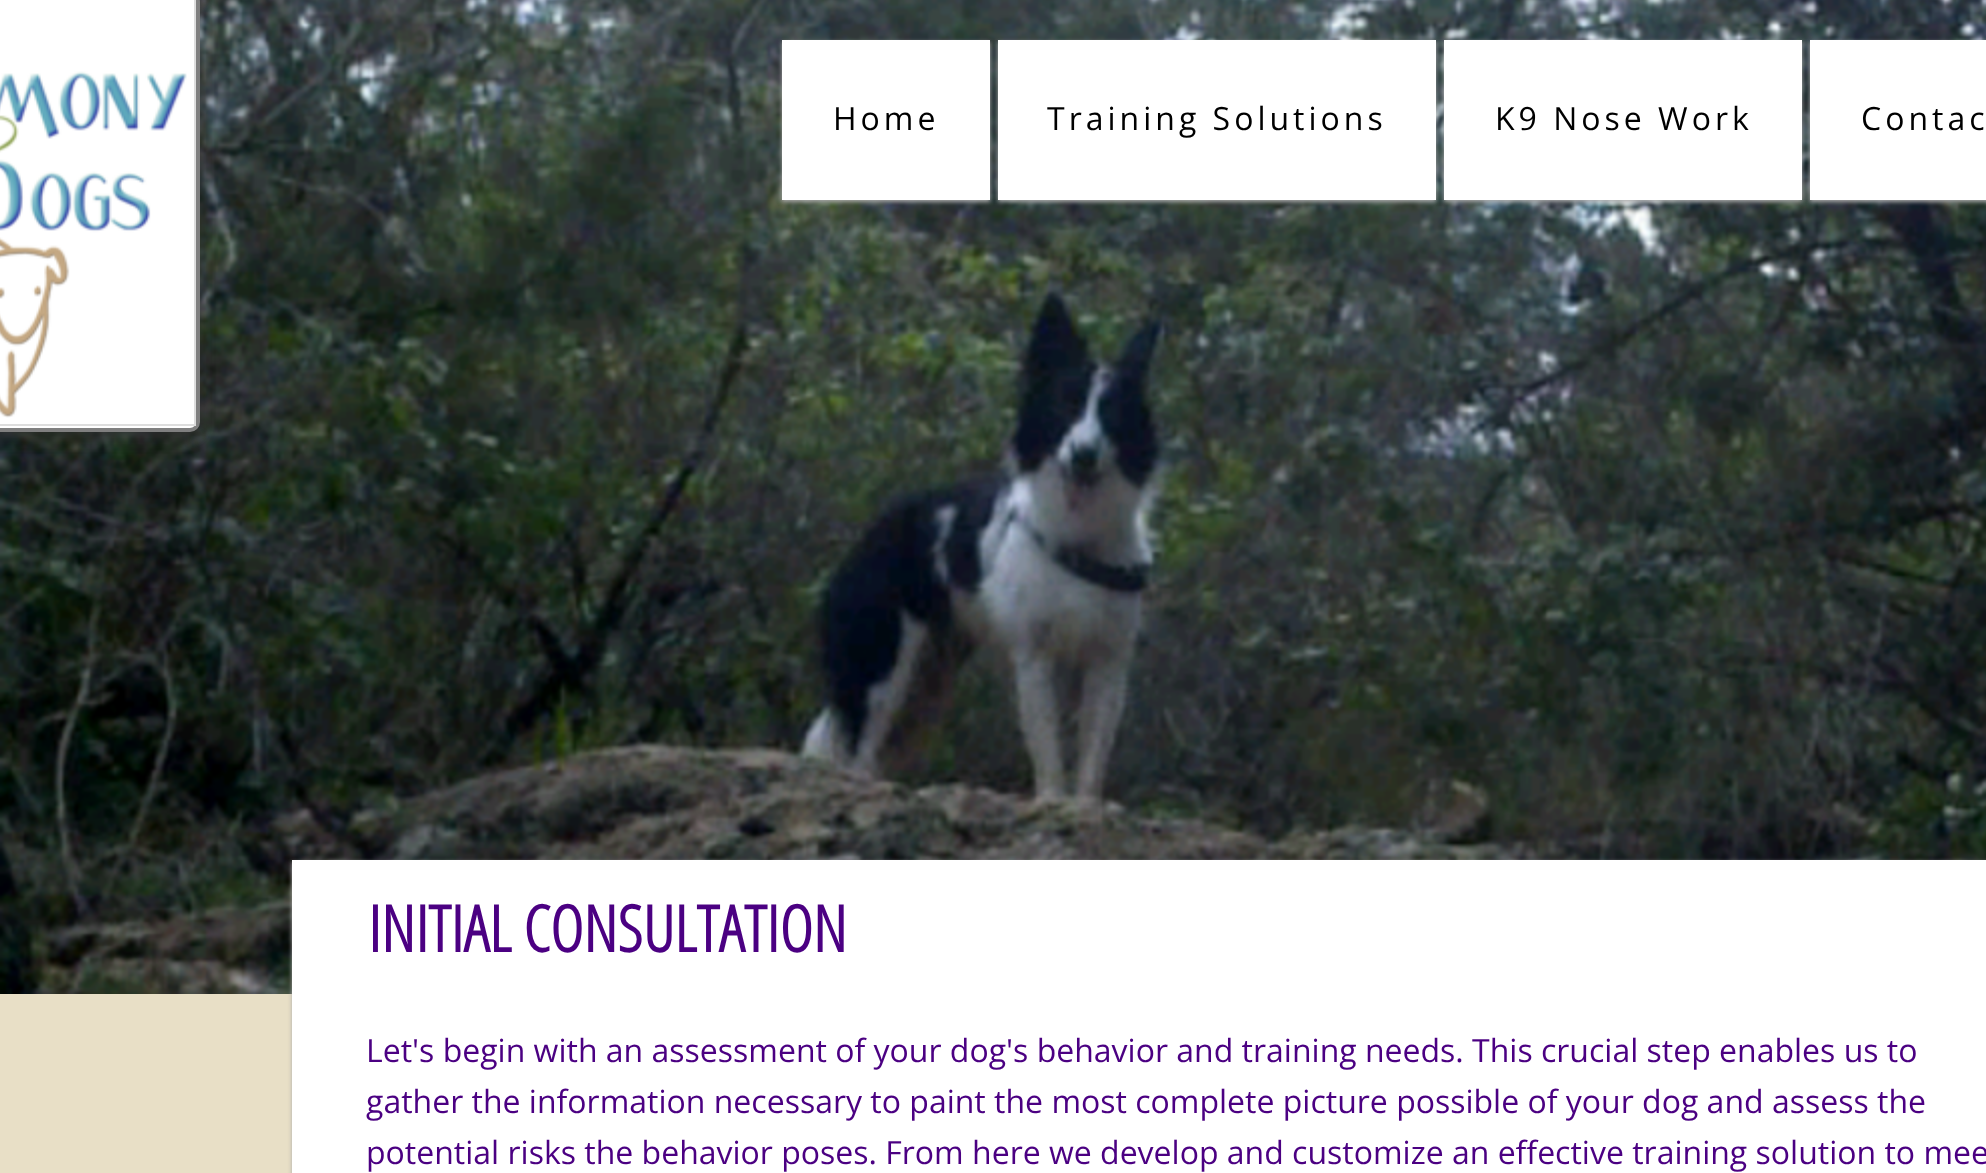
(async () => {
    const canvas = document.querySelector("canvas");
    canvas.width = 1986;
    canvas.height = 1173;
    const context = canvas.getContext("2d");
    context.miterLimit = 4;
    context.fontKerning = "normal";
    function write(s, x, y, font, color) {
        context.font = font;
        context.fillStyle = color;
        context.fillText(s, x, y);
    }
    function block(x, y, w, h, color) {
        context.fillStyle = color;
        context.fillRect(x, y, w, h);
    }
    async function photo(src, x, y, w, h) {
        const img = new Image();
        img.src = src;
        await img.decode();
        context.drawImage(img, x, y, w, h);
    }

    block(0, 0, 1986, 1173, "rgb(232, 223, 198)");
    await photo("media/2.png", 0, 0, 1986, 994);
    context.fillStyle = "rgba(50, 50, 50, 0.75)";
    context.filter = "blur(7px)";
    context.beginPath();
    context.roundRect(-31, -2, 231, 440, 10);
    context.fill();
    context.filter = "none";
    context.fillStyle = "rgb(255, 255, 255)";
    context.beginPath();
    context.roundRect(-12, -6, 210, 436, 8);
    context.fill();
    context.strokeStyle = "rgb(127, 127, 127)";
    context.lineWidth = 4;
    context.stroke();
    context.strokeStyle = "rgb(221, 221, 221)";
    context.lineWidth = 2;
    context.strokeRect(-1, -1, 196, 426);
    await photo("media/1.png", 0, 71, 187, 347);
    context.fillStyle = "rgb(170, 170, 170)";
    context.filter = "blur(2px)";
    context.beginPath();
    context.rect(782, 42, 208, 160);
    context.fill();
    context.filter = "none";
    block(782, 40, 208, 160, "rgb(255, 255, 255)");
    context.letterSpacing = "4px";
    write("Home", 833, 130, "32px Open Sans", "rgb(0, 0, 0)");
    context.fillStyle = "rgb(170, 170, 170)";
    context.filter = "blur(2px)";
    context.beginPath();
    context.rect(998, 42, 438, 160);
    context.fill();
    context.filter = "none";
    block(998, 40, 438, 160, "rgb(255, 255, 255)");
    write("Training Solutions", 1047, 130, "32px Open Sans", "rgb(0, 0, 0)");
    context.fillStyle = "rgb(170, 170, 170)";
    context.filter = "blur(2px)";
    context.beginPath();
    context.rect(1444, 42, 358, 160);
    context.fill();
    context.filter = "none";
    block(1444, 40, 358, 160, "rgb(255, 255, 255)");
    write("K9 Nose Work", 1495, 130, "32px Open Sans", "rgb(0, 0, 0)");
    context.fillStyle = "rgb(170, 170, 170)";
    context.filter = "blur(2px)";
    context.beginPath();
    context.rect(1810, 42, 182, 160);
    context.fill();
    context.filter = "none";
    block(1810, 40, 176, 160, "rgb(255, 255, 255)");
    write("Contac", 1861, 130, "32px Open Sans", "rgb(0, 0, 0)");
    context.fillStyle = "rgb(170, 170, 170)";
    context.filter = "blur(2px)";
    context.beginPath();
    context.rect(292, 862, 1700, 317);
    context.fill();
    context.filter = "none";
    block(292, 860, 1694, 313, "rgb(255, 255, 255)");
    context.letterSpacing = "0px";
    write("INITIAL CONSULTATION", 368, 952, "bold 64px Open Sans Condensed", "rgb(75, 0, 130)");
    write("Let's begin with an assessment of your dog's behavior and training needs. This crucial step enables us to", 366, 1062, "32px Open Sans", "rgb(75, 0, 130)");
    write("gather the information necessary to paint the most complete picture possible of your dog and assess the", 366, 1113, "32px Open Sans", "rgb(75, 0, 130)");
    write("potential risks the behavior poses. From here we develop and customize an effective training solution to mee", 366, 1164, "32px Open Sans", "rgb(75, 0, 130)");
})();
